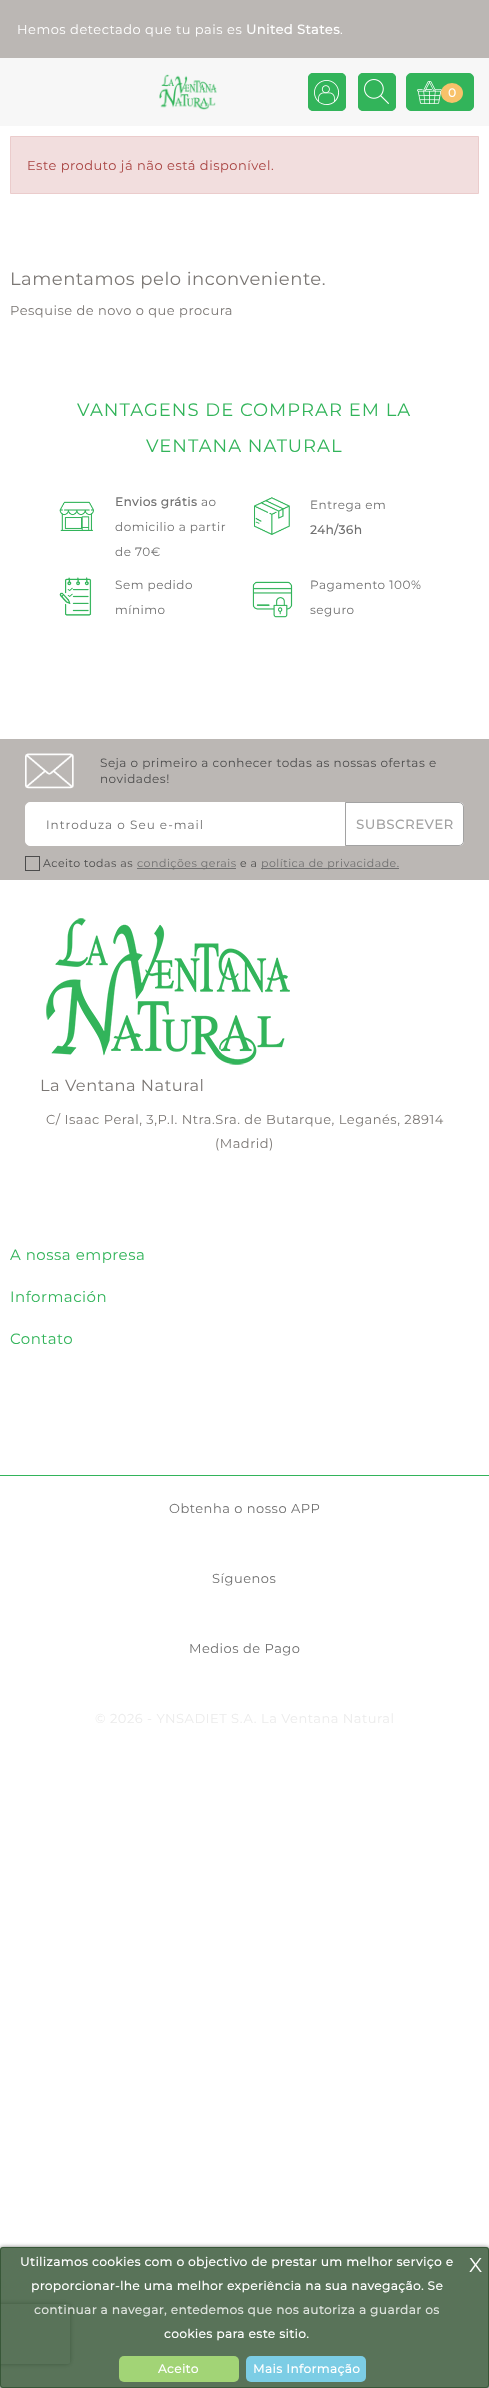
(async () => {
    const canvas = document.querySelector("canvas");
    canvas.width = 489;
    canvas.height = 2388;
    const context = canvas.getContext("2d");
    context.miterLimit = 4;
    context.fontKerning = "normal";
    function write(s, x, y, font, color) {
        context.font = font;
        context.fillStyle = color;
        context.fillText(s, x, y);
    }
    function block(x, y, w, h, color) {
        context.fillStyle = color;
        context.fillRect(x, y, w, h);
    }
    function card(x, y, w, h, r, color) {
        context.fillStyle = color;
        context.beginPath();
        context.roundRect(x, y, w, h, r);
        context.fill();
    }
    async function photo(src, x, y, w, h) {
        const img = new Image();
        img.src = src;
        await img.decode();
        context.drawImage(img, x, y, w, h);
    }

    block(0, 0, 489, 2388, "rgb(255, 255, 255)");
    block(0, 58, 489, 68, "rgb(247, 247, 247)");
    block(0, 0, 489, 58, "rgb(187, 183, 180)");
    context.letterSpacing = "0.5px";
    write("Hemos detectado que tu pais es", 17, 34, "100 13px Montserrat", "rgb(255, 255, 255)");
    write("United States", 246, 34, "bold 13px Montserrat", "rgb(255, 255, 255)");
    write(".", 340, 34, "100 13px Montserrat", "rgb(255, 255, 255)");
    await photo("media/1.png", 159, 74, 58, 36);
    card(308, 73, 38, 38, 5, "rgb(50, 180, 90)");
    await photo("media/2.png", 314, 80, 25, 25);
    context.beginPath();
    context.roundRect(308.5, 73.5, 37, 37, 4.5);
    context.strokeStyle = "rgb(50, 180, 90)";
    context.stroke();
    card(358, 73, 38, 38, 5, "rgb(50, 180, 90)");
    await photo("media/3.png", 364, 79, 25, 25);
    context.beginPath();
    context.roundRect(358.5, 73.5, 37, 37, 4.5);
    context.stroke();
    context.beginPath();
    context.roundRect(406.5, 73.5, 67, 37, 4.5);
    context.fill();
    context.stroke();
    await photo("media/4.png", 417, 81, 25, 23);
    context.fillStyle = "rgb(248, 194, 106)";
    context.beginPath();
    context.ellipse(452, 93, 11, 10, 0, 0, Math.PI * 2);
    context.fill();
    write("0", 448, 97, "bold 12px Montserrat", "rgb(255, 255, 255)");
    context.save();
    context.beginPath();
    context.moveTo(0, 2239);
    context.lineTo(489, 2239);
    context.lineTo(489, 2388);
    context.lineTo(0, 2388);
    context.closePath();
    context.moveTo(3, 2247);
    context.lineTo(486, 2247);
    context.bezierCurveTo(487.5, 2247, 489, 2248.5, 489, 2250);
    context.lineTo(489, 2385);
    context.bezierCurveTo(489, 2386.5, 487.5, 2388, 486, 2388);
    context.lineTo(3, 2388);
    context.bezierCurveTo(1.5, 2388, 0, 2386.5, 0, 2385);
    context.lineTo(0, 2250);
    context.bezierCurveTo(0, 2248.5, 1.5, 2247, 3, 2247);
    context.closePath();
    context.clip("evenodd");
    context.fillStyle = "rgb(51, 51, 51)";
    context.filter = "blur(2.5px)";
    context.beginPath();
    context.roundRect(0, 2248, 489, 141, 3);
    context.fill();
    context.filter = "none";
    context.restore();
    context.save();
    context.beginPath();
    context.moveTo(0, 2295);
    context.lineTo(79, 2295);
    context.lineTo(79, 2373);
    context.lineTo(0, 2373);
    context.closePath();
    context.moveTo(-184, 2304);
    context.lineTo(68, 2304);
    context.bezierCurveTo(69, 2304, 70, 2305, 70, 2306);
    context.lineTo(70, 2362);
    context.bezierCurveTo(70, 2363, 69, 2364, 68, 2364);
    context.lineTo(-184, 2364);
    context.bezierCurveTo(-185, 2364, -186, 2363, -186, 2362);
    context.lineTo(-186, 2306);
    context.bezierCurveTo(-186, 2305, -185, 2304, -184, 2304);
    context.closePath();
    context.clip("evenodd");
    context.fillStyle = "rgb(128, 128, 128)";
    context.filter = "blur(2.5px)";
    context.beginPath();
    context.roundRect(-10, 2304, 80, 60, 2);
    context.fill();
    context.filter = "none";
    context.restore();
    card(0, 2247, 489, 141, 3, "rgba(48, 80, 48, 0.8)");
    context.beginPath();
    context.roundRect(0.5, 2247.5, 488, 140, 2.5);
    context.strokeStyle = "rgba(48, 80, 48, 0.8)";
    context.stroke();
    write("Utilizamos cookies com o objectivo de prestar um melhor serviço e", 20, 2266, "bold 12px Montserrat", "rgb(255, 255, 255)");
    write("proporcionar-lhe uma melhor experiência na sua navegação. Se", 31, 2290, "bold 12px Montserrat", "rgb(255, 255, 255)");
    write("continuar a navegar, entedemos que nos autoriza a guardar os", 34, 2314, "bold 12px Montserrat", "rgb(222, 227, 222)");
    write("cookies para este sitio.", 164, 2338, "bold 12px Montserrat", "rgb(255, 255, 255)");
    card(119, 2356, 120, 26, 5, "rgb(162, 212, 118)");
    write("Aceito", 158, 2373, "bold 12px Montserrat", "rgb(255, 255, 255)");
    card(246, 2356, 120, 26, 5, "rgb(124, 205, 229)");
    write("Mais Informação", 253, 2373, "bold 12px Montserrat", "rgb(255, 255, 255)");
    write("X", 469, 2272, "100 20px Montserrat", "rgb(255, 255, 255)");
    context.fillStyle = "rgb(242, 222, 222)";
    context.beginPath();
    context.rect(10.5, 136.5, 468, 57);
    context.fill();
    context.strokeStyle = "rgb(235, 204, 204)";
    context.stroke();
    write("Este produto já não está disponível.", 27, 170, "100 13px Montserrat", "rgb(169, 68, 66)");
    write("Lamentamos pelo inconveniente.", 10, 285, "100 18px Montserrat", "rgb(123, 119, 116)");
    write("Pesquise de novo o que procura", 10, 315, "100 13px Montserrat", "rgb(123, 119, 116)");
    context.letterSpacing = "1px";
    write("VANTAGENS DE COMPRAR EM LA", 77, 416, "100 18px Montserrat", "rgb(50, 180, 90)");
    write("VENTANA NATURAL", 146, 452, "100 18px Montserrat", "rgb(50, 180, 90)");
    await photo("media/5.png", 59, 501, 35, 30);
    context.letterSpacing = "0.5px";
    write("Envios grátis", 115, 506, "bold 12px Montserrat", "rgb(112, 112, 112)");
    write("ao", 201, 506, "100 12px Montserrat", "rgb(112, 112, 112)");
    write("domicilio a partir", 115, 531, "100 12px Montserrat", "rgb(112, 112, 112)");
    write("de 70€", 115, 556, "100 12px Montserrat", "rgb(112, 112, 112)");
    await photo("media/6.png", 254, 497, 36, 38);
    write("Entrega em", 310, 509, "100 12px Montserrat", "rgb(112, 112, 112)");
    write("24h/36h", 310, 534, "bold 12px Montserrat", "rgb(112, 112, 112)");
    await photo("media/7.png", 59, 577, 33, 39);
    write("Sem pedido", 115, 589, "100 12px Montserrat", "rgb(112, 112, 112)");
    write("mínimo", 115, 614, "100 12px Montserrat", "rgb(112, 112, 112)");
    await photo("media/8.png", 252, 581, 41, 37);
    write("Pagamento 100%", 310, 589, "100 12px Montserrat", "rgb(112, 112, 112)");
    write("seguro", 310, 614, "100 12px Montserrat", "rgb(112, 112, 112)");
    block(0, 739, 489, 141, "rgb(187, 183, 180)");
    await photo("media/9.png", 25, 753, 49, 36);
    write("Seja o primeiro a conhecer todas as nossas ofertas e", 100, 767, "100 12px Montserrat", "rgb(76, 76, 76)");
    write("novidades!", 100, 783, "100 12px Montserrat", "rgb(76, 76, 76)");
    context.fillStyle = "rgb(255, 255, 255)";
    context.beginPath();
    context.roundRect(25.5, 802.5, 438, 43, 4.5);
    context.fill();
    context.strokeStyle = "rgb(255, 255, 255)";
    context.stroke();
    context.letterSpacing = "1px";
    write("Introduza o Seu e-mail", 46, 829, "100 12px Montserrat", "rgb(112, 112, 112)");
    context.fillStyle = "rgba(255, 255, 255, 0.65)";
    context.beginPath();
    context.roundRect(345, 802, 119, 44, [0, 5, 5, 0]);
    context.fill();
    context.beginPath();
    context.roundRect(345.5, 802.5, 118, 43, [0, 4.5, 4.5, 0]);
    context.strokeStyle = "rgba(112, 112, 112, 0.65)";
    context.stroke();
    context.letterSpacing = "0.75px";
    write("SUBSCREVER", 356, 829, "bold 13px Montserrat", "rgb(162, 162, 162)");
    context.strokeStyle = "rgb(76, 76, 76)";
    context.strokeRect(25.5, 856.5, 14, 14);
    context.letterSpacing = "0.5px";
    write("Aceito todas as", 43, 867, "100 11px Montserrat", "rgb(76, 76, 76)");
    block(137, 868, 99, 1, "rgb(112, 112, 112)");
    write("condições gerais", 137, 867, "100 11px Montserrat", "rgb(112, 112, 112)");
    write("e a", 240, 867, "100 11px Montserrat", "rgb(76, 76, 76)");
    block(261, 868, 138, 1, "rgb(112, 112, 112)");
    write("política de privacidade.", 261, 867, "100 11px Montserrat", "rgb(112, 112, 112)");
    await photo("media/10.png", 46, 918, 244, 147);
    write("La Ventana Natural", 40, 1091, "100 16.25px Montserrat", "rgb(123, 119, 116)");
    write("C/ Isaac Peral, 3,P.I. Ntra.Sra. de Butarque, Leganés, 28914", 46, 1124, "100 13px Montserrat", "rgb(123, 119, 116)");
    write("(Madrid)", 215, 1148, "100 13px Montserrat", "rgb(123, 119, 116)");
    write("A nossa empresa", 10, 1260, "100 15px Montserrat", "rgb(50, 180, 90)");
    write("Información", 10, 1302, "100 15px Montserrat", "rgb(50, 180, 90)");
    write("Contato", 10, 1344, "100 15px Montserrat", "rgb(50, 180, 90)");
    block(0, 1475, 489, 1, "rgb(50, 180, 90)");
    write("Obtenha o nosso APP", 169, 1513, "100 13px Montserrat", "rgb(112, 112, 112)");
    write("Síguenos", 212, 1583, "100 13px Montserrat", "rgb(112, 112, 112)");
    write("Medios de Pago", 189, 1653, "100 13px Montserrat", "rgb(112, 112, 112)");
    write("© 2026 - YNSADIET S.A. La Ventana Natural", 95, 1723, "100 13px Montserrat", "rgb(235, 235, 235)");
})();
